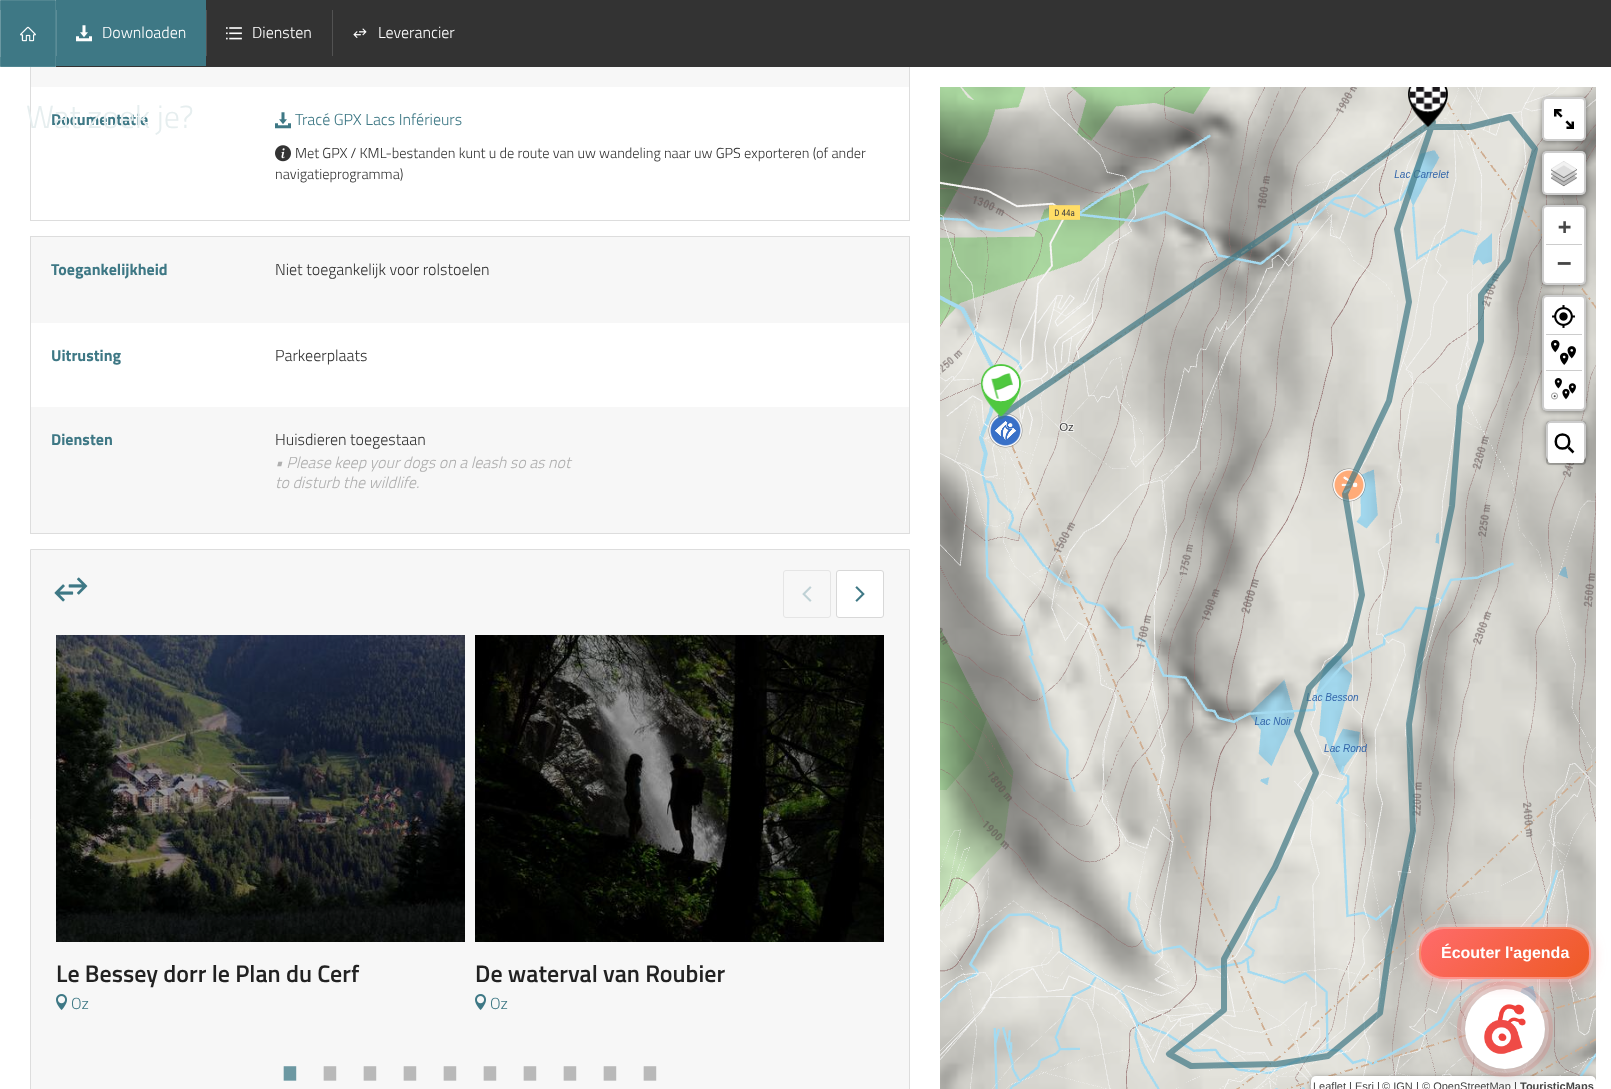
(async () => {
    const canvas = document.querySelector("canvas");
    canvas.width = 1611;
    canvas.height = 1089;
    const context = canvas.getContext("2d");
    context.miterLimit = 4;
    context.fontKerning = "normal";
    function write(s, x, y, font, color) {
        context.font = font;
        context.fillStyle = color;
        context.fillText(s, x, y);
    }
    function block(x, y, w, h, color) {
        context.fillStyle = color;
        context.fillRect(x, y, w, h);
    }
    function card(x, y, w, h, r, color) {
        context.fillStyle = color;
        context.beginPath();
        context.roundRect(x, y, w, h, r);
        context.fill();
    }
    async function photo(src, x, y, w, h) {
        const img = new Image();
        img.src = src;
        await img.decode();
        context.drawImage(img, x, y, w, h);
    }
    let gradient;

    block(0, 0, 1611, 1089, "rgb(255, 255, 255)");
    context.strokeStyle = "rgb(221, 221, 221)";
    context.strokeRect(30.5, -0.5, 879, 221);
    block(56, 0, 1555, 67, "rgb(51, 51, 51)");
    context.fillStyle = "rgb(62, 120, 133)";
    context.beginPath();
    context.rect(0.5, 0.5, 55, 66);
    context.fill();
    context.strokeStyle = "rgb(81, 134, 145)";
    context.stroke();
    block(0, 10, 1, 47, "rgb(107, 152, 162)");
    await photo("media/1.png", 20, 26, 16, 16);
    block(56, 0, 150, 66, "rgb(62, 120, 133)");
    block(56, 10, 1, 46, "rgb(91, 140, 151)");
    await photo("media/2.png", 76, 25, 16, 17);
    write("Downloaden", 102, 38, "300 16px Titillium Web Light", "rgb(255, 255, 255)");
    block(206, 10, 1, 46, "rgb(82, 82, 82)");
    await photo("media/3.png", 226, 27, 16, 13);
    write("Diensten", 252, 38, "300 16px Titillium Web Light", "rgb(255, 255, 255)");
    block(332, 10, 1, 46, "rgb(82, 82, 82)");
    await photo("media/4.png", 353, 28, 14, 10);
    write("Leverancier", 378, 38, "300 16px Titillium Web Light", "rgb(255, 255, 255)");
    block(31, 67, 878, 20, "rgb(247, 247, 247)");
    write("Documentatie", 51, 125, "bold 16px Titillium Web", "rgb(62, 120, 133)");
    await photo("media/5.png", 275, 112, 16, 17);
    write("Tracé GPX Lacs Inférieurs", 295, 125, "300 16px Titillium Web Light", "rgb(62, 120, 133)");
    await photo("media/6.png", 275, 145, 16, 17);
    write("Met GPX / KML-bestanden kunt u de route van uw wandeling naar uw GPS exporteren (of ander", 295, 158, "300 14.4px Titillium Web Light", "rgb(51, 51, 51)");
    write("navigatieprogramma)", 275, 179, "300 14.4px Titillium Web Light", "rgb(51, 51, 51)");
    context.strokeStyle = "rgb(221, 221, 221)";
    context.strokeRect(30.5, 236.5, 879, 297);
    block(31, 237, 878, 296, "rgb(247, 247, 247)");
    write("Toegankelijkheid", 51, 275, "bold 16px Titillium Web", "rgb(62, 120, 133)");
    write("Niet toegankelijk voor rolstoelen", 275, 275, "300 16px Titillium Web Light", "rgb(51, 51, 51)");
    block(31, 323, 878, 84, "rgb(255, 255, 255)");
    write("Uitrusting", 51, 361, "bold 16px Titillium Web", "rgb(62, 120, 133)");
    write("Parkeerplaats", 275, 361, "300 16px Titillium Web Light", "rgb(51, 51, 51)");
    write("Diensten", 51, 445, "bold 16px Titillium Web", "rgb(62, 120, 133)");
    write("Huisdieren toegestaan", 275, 445, "300 16px Titillium Web Light", "rgb(51, 51, 51)");
    write("• Please keep your dogs on a leash so as not", 275, 468, "italic 300 16px Titillium Web Light", "rgb(175, 175, 175)");
    write("to disturb the wildlife.", 275, 488, "italic 300 16px Titillium Web Light", "rgb(175, 175, 175)");
    context.fillStyle = "rgb(247, 247, 247)";
    context.beginPath();
    context.rect(30.5, 549.5, 879, 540);
    context.fill();
    context.stroke();
    await photo("media/7.png", 54, 577, 34, 25);
    context.beginPath();
    context.roundRect(783.5, 570.5, 47, 47, 2.5);
    context.strokeStyle = "rgb(229, 229, 229)";
    context.stroke();
    await photo("media/8.png", 802, 586, 10, 16);
    context.fillStyle = "rgb(255, 255, 255)";
    context.beginPath();
    context.roundRect(836.5, 570.5, 47, 47, 2.5);
    context.fill();
    context.strokeStyle = "rgb(216, 216, 216)";
    context.stroke();
    await photo("media/9.png", 855, 586, 10, 16);
    block(56, 635, 409, 307, "rgb(0, 0, 0)");
    await photo("media/10.png", 56, 635, 409, 307);
    write("Le Bessey dorr le Plan du Cerf", 56, 982, "600 24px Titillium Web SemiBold", "rgb(34, 34, 34)");
    await photo("media/11.png", 56, 994, 11, 16);
    write("Oz", 71, 1009, "300 16px Titillium Web Light", "rgb(62, 120, 133)");
    block(475, 635, 409, 307, "rgb(0, 0, 0)");
    await photo("media/12.png", 475, 635, 409, 307);
    write("De waterval van Roubier", 475, 982, "600 24px Titillium Web SemiBold", "rgb(34, 34, 34)");
    await photo("media/11.png", 475, 994, 11, 16);
    write("Oz", 490, 1009, "300 16px Titillium Web Light", "rgb(62, 120, 133)");
    write("•", 278, 1086, "300 50px Titillium Web Light", "rgb(108, 152, 162)");
    write("•", 318, 1086, "300 50px Titillium Web Light", "rgb(185, 185, 185)");
    write("•", 358, 1086, "300 50px Titillium Web Light", "rgb(185, 185, 185)");
    write("•", 398, 1086, "300 50px Titillium Web Light", "rgb(185, 185, 185)");
    write("•", 438, 1086, "300 50px Titillium Web Light", "rgb(185, 185, 185)");
    write("•", 478, 1086, "300 50px Titillium Web Light", "rgb(185, 185, 185)");
    write("•", 518, 1086, "300 50px Titillium Web Light", "rgb(185, 185, 185)");
    write("•", 558, 1086, "300 50px Titillium Web Light", "rgb(185, 185, 185)");
    write("•", 598, 1086, "300 50px Titillium Web Light", "rgb(185, 185, 185)");
    write("•", 638, 1086, "300 50px Titillium Web Light", "rgb(185, 185, 185)");
    block(940, 87, 656, 1002, "rgb(221, 221, 221)");
    await photo("media/13.png", 940, 87, 656, 1002);
    context.beginPath();
    context.moveTo(1001, 416);
    context.lineTo(1433, 122);
    context.lineTo(1397, 229);
    context.lineTo(1409, 302);
    context.lineTo(1389, 401);
    context.lineTo(1345, 494);
    context.lineTo(1362, 595);
    context.lineTo(1350, 644);
    context.lineTo(1309, 688);
    context.lineTo(1297, 731);
    context.lineTo(1316, 773);
    context.lineTo(1275, 867);
    context.lineTo(1224, 959);
    context.lineTo(1224, 1010);
    context.lineTo(1169, 1054);
    context.lineTo(1191, 1066);
    context.lineTo(1277, 1064);
    context.lineTo(1328, 1056);
    context.lineTo(1380, 1013);
    context.lineTo(1389, 950);
    context.lineTo(1413, 831);
    context.lineTo(1409, 724);
    context.lineTo(1421, 654);
    context.lineTo(1452, 506);
    context.lineTo(1460, 406);
    context.lineTo(1481, 341);
    context.lineTo(1481, 295);
    context.lineTo(1508, 260);
    context.lineTo(1535, 149);
    context.lineTo(1510, 117);
    context.lineTo(1470, 127);
    context.lineTo(1428, 127);
    context.strokeStyle = "rgba(62, 120, 133, 0.7)";
    context.lineWidth = 6;
    context.lineCap = "round";
    context.lineJoin = "round";
    context.stroke();
    await photo("media/14.png", 1408, 87, 40, 40);
    await photo("media/15.png", 981, 364, 40, 52);
    context.fillStyle = "rgba(0, 0, 0, 0.4)";
    context.filter = "blur(2.5px)";
    context.beginPath();
    context.roundRect(1542, 98, 44, 44, 5);
    context.fill();
    context.filter = "none";
    card(1542, 97, 44, 44, 5, "rgb(255, 255, 255)");
    context.beginPath();
    context.roundRect(1543, 98, 42, 42, 4);
    context.strokeStyle = "rgba(0, 0, 0, 0.2)";
    context.lineWidth = 2;
    context.lineJoin = "miter";
    context.stroke();
    await photo("media/16.png", 1554, 109, 20, 20);
    context.fillStyle = "rgba(0, 0, 0, 0.4)";
    context.filter = "blur(2.5px)";
    context.beginPath();
    context.roundRect(1542, 152, 44, 44, 5);
    context.fill();
    context.filter = "none";
    card(1542, 151, 44, 44, 5, "rgb(255, 255, 255)");
    context.beginPath();
    context.roundRect(1543, 152, 42, 42, 4);
    context.stroke();
    await photo("media/17.png", 1551, 161, 26, 26);
    context.fillStyle = "rgba(0, 0, 0, 0.4)";
    context.filter = "blur(2.5px)";
    context.beginPath();
    context.roundRect(1542, 206, 44, 80, 5);
    context.fill();
    context.filter = "none";
    card(1542, 205, 44, 80, 5, "rgb(255, 255, 255)");
    context.beginPath();
    context.roundRect(1543, 206, 42, 78, 4);
    context.stroke();
    block(1546, 244, 36, 1, "rgb(204, 204, 204)");
    write("+", 1558, 234, "bold 22px DejaVu Sans Mono", "rgb(70, 70, 70)");
    write("−", 1557, 271, "bold 24px DejaVu Sans Mono", "rgb(70, 70, 70)");
    context.fillStyle = "rgba(0, 0, 0, 0.4)";
    context.filter = "blur(2.5px)";
    context.beginPath();
    context.roundRect(1542, 296, 44, 116, 5);
    context.fill();
    context.filter = "none";
    card(1542, 295, 44, 116, 5, "rgb(255, 255, 255)");
    context.beginPath();
    context.roundRect(1543, 296, 42, 114, 4);
    context.stroke();
    await photo("media/18.png", 1552, 305, 23, 23);
    block(1546, 334, 36, 1, "rgb(204, 204, 204)");
    await photo("media/19.png", 1551, 340, 25, 25);
    block(1546, 370, 36, 1, "rgb(204, 204, 204)");
    await photo("media/20.png", 1551, 378, 25, 22);
    context.fillStyle = "rgba(0, 0, 0, 0.4)";
    context.filter = "blur(2.5px)";
    context.beginPath();
    context.roundRect(1546, 422, 40, 40, 5);
    context.fill();
    context.filter = "none";
    card(1546, 421, 40, 40, 5, "rgb(255, 255, 255)");
    card(1548, 423, 36, 40, 2, "rgb(255, 255, 255)");
    context.beginPath();
    context.moveTo(1562.5, 448.5);
    context.bezierCurveTo(1553.5, 448.5, 1553.5, 434.5, 1562.5, 434.5);
    context.bezierCurveTo(1571.5, 434.5, 1571.5, 448.5, 1562.5, 448.5);
    context.closePath();
    context.moveTo(1568.5, 447.5);
    context.lineTo(1573.5, 452.5);
    context.closePath();
    context.strokeStyle = "rgb(0, 0, 0)";
    context.lineWidth = 2.5;
    context.lineCap = "butt";
    context.stroke();
    context.beginPath();
    context.roundRect(1547, 422, 38, 42, 3);
    context.strokeStyle = "rgba(0, 0, 0, 0.2)";
    context.lineWidth = 2;
    context.stroke();
    context.save();
    context.beginPath();
    context.rect(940, 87, 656, 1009);
    context.clip();
    context.fillStyle = "rgba(0, 0, 0, 0.4)";
    context.filter = "blur(2.5px)";
    context.beginPath();
    context.roundRect(1311, 1077, 285, 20, 5);
    context.fill();
    context.filter = "none";
    context.restore();
    card(1311, 1076, 285, 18, 5, "rgb(255, 255, 255)");
    write("Leaflet", 1313, 1090, "11px Liberation Sans", "rgb(70, 70, 70)");
    write("|", 1349, 1090, "11px Liberation Sans", "rgb(51, 51, 51)");
    write("Esri", 1355, 1090, "11px Liberation Sans", "rgb(70, 70, 70)");
    write("|", 1377, 1090, "11px Liberation Sans", "rgb(51, 51, 51)");
    write("© IGN", 1382, 1090, "11px Liberation Sans", "rgb(70, 70, 70)");
    write("|", 1416, 1090, "11px Liberation Sans", "rgb(51, 51, 51)");
    write("© OpenStreetMap", 1422, 1090, "11px Liberation Sans", "rgb(70, 70, 70)");
    write("|", 1514, 1090, "11px Liberation Sans", "rgb(51, 51, 51)");
    write("TouristicMaps", 1520, 1090, "bold 11px Liberation Sans", "rgb(70, 70, 70)");
    write("Wat zoek je?", 26, 128, "300 32px Titillium Web Light", "rgb(230, 238, 239)");
    context.beginPath();
    context.arc(1505, 1029, 44, 0, Math.PI * 2);
    context.strokeStyle = "rgba(255, 107, 107, 0.2)";
    context.lineWidth = 8;
    context.stroke();
    context.beginPath();
    context.arc(1505, 1029, 42, 0, Math.PI * 2);
    context.strokeStyle = "rgba(255, 255, 255, 0.3)";
    context.lineWidth = 4;
    context.stroke();
    context.fillStyle = "rgba(0, 0, 0, 0.2)";
    context.filter = "blur(12.5px)";
    context.beginPath();
    context.roundRect(1465, 997, 80, 80, 40);
    context.fill();
    context.filter = "none";
    context.beginPath();
    context.roundRect(1417.5, 925.5, 175, 55, 26.5);
    context.strokeStyle = "rgba(255, 255, 255, 0.2)";
    context.lineWidth = 3;
    context.stroke();
    context.fillStyle = "rgb(255, 255, 255)";
    context.beginPath();
    context.arc(1505, 1029, 40, 0, Math.PI * 2);
    context.fill();
    await photo("media/21.png", 1484, 1004, 42, 50);
    context.fillStyle = "rgba(255, 107, 107, 0.4)";
    context.filter = "blur(7.5px)";
    context.beginPath();
    context.roundRect(1419, 931, 172, 52, 25);
    context.fill();
    context.filter = "none";
    context.save();
    context.beginPath();
    context.roundRect(1419, 927, 172, 52, 25);
    context.clip();
    gradient = context.createLinearGradient(1451, 851, 1559, 959);
    gradient.addColorStop(0, "rgb(255, 107, 107)");
    gradient.addColorStop(1, "rgb(238, 90, 36)");
    context.fillStyle = gradient;
    context.fillRect(1434, 927, 142, 2);
    gradient = context.createLinearGradient(1283, 899, 1391, 1007);
    gradient.addColorStop(0, "rgb(255, 107, 107)");
    gradient.addColorStop(1, "rgb(238, 90, 36)");
    context.fillStyle = gradient;
    context.fillRect(1419, 942, 2, 22);
    gradient = context.createLinearGradient(1451, 899, 1559, 1007);
    gradient.addColorStop(0, "rgb(255, 107, 107)");
    gradient.addColorStop(1, "rgb(238, 90, 36)");
    context.fillStyle = gradient;
    context.fillRect(1421, 929, 168, 48);
    gradient = context.createLinearGradient(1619, 899, 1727, 1007);
    gradient.addColorStop(0, "rgb(255, 107, 107)");
    gradient.addColorStop(1, "rgb(238, 90, 36)");
    context.fillStyle = gradient;
    context.fillRect(1589, 942, 2, 22);
    gradient = context.createLinearGradient(1451, 947, 1559, 1055);
    gradient.addColorStop(0, "rgb(255, 107, 107)");
    gradient.addColorStop(1, "rgb(238, 90, 36)");
    context.fillStyle = gradient;
    context.fillRect(1434, 977, 142, 2);
    context.restore();
    context.beginPath();
    context.roundRect(1420, 928, 170, 50, 24);
    context.strokeStyle = "rgba(255, 255, 255, 0.3)";
    context.lineWidth = 2;
    context.stroke();
    write("Écouter l'agenda", 1441, 958, "bold 16px Liberation Sans", "rgb(255, 255, 255)");
})();
